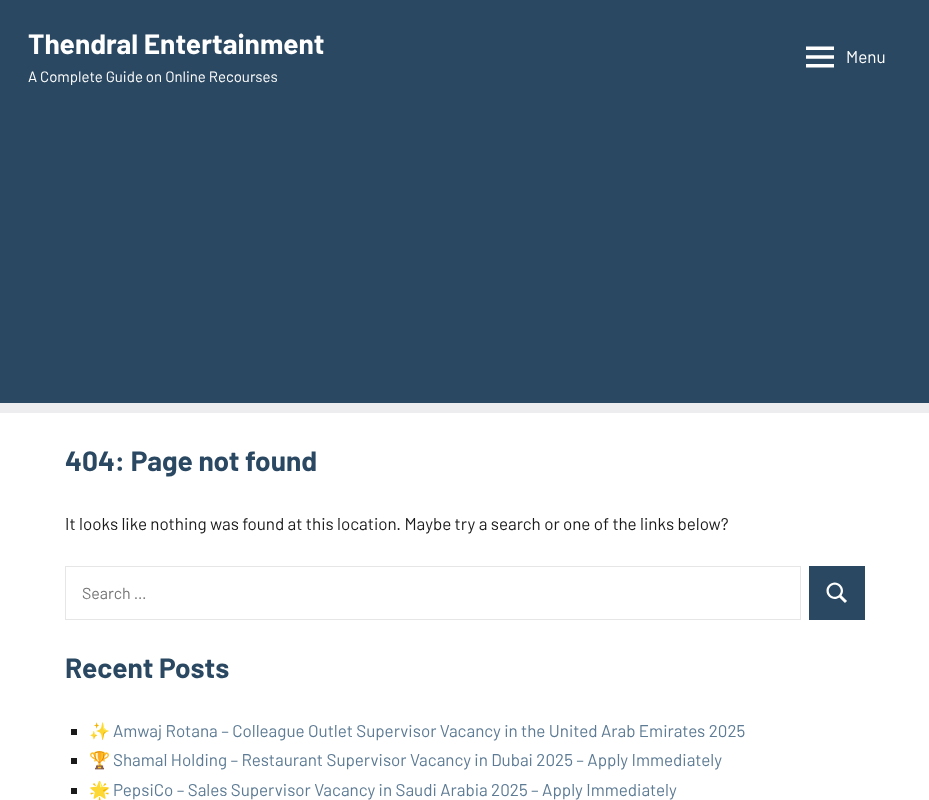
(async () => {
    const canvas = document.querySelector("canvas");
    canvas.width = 929;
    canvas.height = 800;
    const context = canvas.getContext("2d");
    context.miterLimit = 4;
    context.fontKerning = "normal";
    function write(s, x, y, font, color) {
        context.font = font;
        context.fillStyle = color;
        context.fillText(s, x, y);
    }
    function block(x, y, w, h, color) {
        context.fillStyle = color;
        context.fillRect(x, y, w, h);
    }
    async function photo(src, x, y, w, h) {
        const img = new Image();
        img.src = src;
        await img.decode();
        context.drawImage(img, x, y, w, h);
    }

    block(0, 0, 929, 800, "rgb(237, 237, 239)");
    block(0, 0, 929, 403, "rgb(42, 72, 97)");
    write("Thendral Entertainment", 28, 54, "bold 28px Barlow", "rgb(255, 255, 255)");
    write("A Complete Guide on Online Recourses", 28, 82, "15px Barlow", "rgb(255, 255, 255)");
    await photo("media/1.png", 806, 46, 28, 22);
    write("Menu", 846, 63, "17px Barlow", "rgb(255, 255, 255)");
    block(0, 413, 929, 387, "rgb(255, 255, 255)");
    write("404: Page not found", 65, 471, "bold 28px Barlow", "rgb(42, 72, 97)");
    write("It looks like nothing was found at this location. Maybe try a search or one of the links below?", 65, 530, "17px Barlow", "rgb(26, 26, 26)");
    context.strokeStyle = "rgb(230, 230, 230)";
    context.strokeRect(65.5, 566.5, 735, 53);
    write("Search …", 82, 599, "16px Barlow", "rgb(117, 117, 117)");
    block(809, 566, 56, 54, "rgb(42, 72, 97)");
    await photo("media/2.png", 826, 582, 21, 21);
    write("Recent Posts", 65, 678, "bold 28px Barlow", "rgb(42, 72, 97)");
    block(71, 729, 6, 6, "rgb(26, 26, 26)");
    write("✨", 89, 737, "17px Noto Color Emoji", "rgb(93, 123, 148)");
    write("Amwaj Rotana – Colleague Outlet Supervisor Vacancy in the United Arab Emirates 2025", 113, 737, "17px Barlow", "rgb(93, 123, 148)");
    block(71, 758, 6, 6, "rgb(26, 26, 26)");
    write("🏆", 89, 766, "17px Noto Color Emoji", "rgb(93, 123, 148)");
    write("Shamal Holding – Restaurant Supervisor Vacancy in Dubai 2025 – Apply Immediately", 113, 766, "17px Barlow", "rgb(93, 123, 148)");
    block(71, 788, 6, 6, "rgb(26, 26, 26)");
    write("🌟", 89, 796, "17px Noto Color Emoji", "rgb(93, 123, 148)");
    write("PepsiCo – Sales Supervisor Vacancy in Saudi Arabia 2025 – Apply Immediately", 113, 796, "17px Barlow", "rgb(93, 123, 148)");
})();
